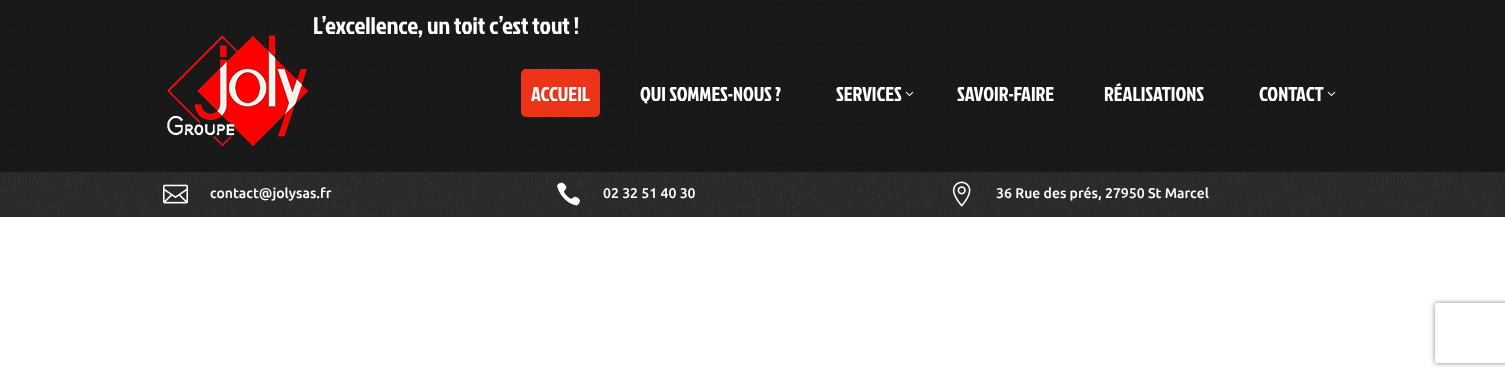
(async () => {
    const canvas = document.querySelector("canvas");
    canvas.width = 1505;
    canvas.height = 377;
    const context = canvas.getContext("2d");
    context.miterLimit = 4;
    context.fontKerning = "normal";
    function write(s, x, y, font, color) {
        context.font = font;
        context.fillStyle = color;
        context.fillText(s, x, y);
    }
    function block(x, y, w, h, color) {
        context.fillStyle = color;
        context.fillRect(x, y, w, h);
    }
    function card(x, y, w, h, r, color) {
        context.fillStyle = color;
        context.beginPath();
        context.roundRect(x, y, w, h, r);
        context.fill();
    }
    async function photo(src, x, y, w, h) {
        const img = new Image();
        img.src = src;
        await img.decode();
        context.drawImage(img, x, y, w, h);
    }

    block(0, 0, 1505, 377, "rgb(255, 255, 255)");
    await photo("media/1.png", 0, 0, 1505, 172);
    write("L’excellence, un toit c’est tout !", 313, 34, "24px Jockey One", "rgb(255, 255, 255)");
    await photo("media/2.png", 167, 35, 142, 112);
    card(521, 69, 79, 48, 5, "rgb(237, 51, 26)");
    write("ACCUEIL", 531, 101, "20px Jockey One", "rgb(255, 255, 255)");
    write("QUI SOMMES-NOUS ?", 640, 101, "20px Jockey One", "rgb(255, 255, 255)");
    write("SERVICES", 836, 101, "20px Jockey One", "rgb(255, 255, 255)");
    await photo("media/3.png", 905, 91, 9, 5);
    write("SAVOIR-FAIRE", 957, 101, "20px Jockey One", "rgb(255, 255, 255)");
    write("RÉALISATIONS", 1104, 101, "20px Jockey One", "rgb(255, 255, 255)");
    write("CONTACT", 1259, 101, "20px Jockey One", "rgb(255, 255, 255)");
    await photo("media/4.png", 1327, 91, 9, 5);
    await photo("media/5.png", 0, 172, 1505, 45);
    await photo("media/6.png", 163, 184, 25, 20);
    write("contact@jolysas.fr", 210, 198, "500 14px Ubuntu", "rgb(255, 255, 255)");
    await photo("media/7.png", 557, 182, 23, 24);
    write("02 32 51 40 30", 603, 198, "500 14px Ubuntu", "rgb(255, 255, 255)");
    await photo("media/8.png", 952, 181, 19, 26);
    write("36 Rue des prés, 27950 St Marcel", 996, 198, "500 14px Ubuntu", "rgb(255, 255, 255)");
    context.save();
    context.beginPath();
    context.moveTo(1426, 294);
    context.lineTo(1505, 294);
    context.lineTo(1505, 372);
    context.lineTo(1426, 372);
    context.closePath();
    context.moveTo(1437, 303);
    context.lineTo(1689, 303);
    context.bezierCurveTo(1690, 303, 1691, 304, 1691, 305);
    context.lineTo(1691, 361);
    context.bezierCurveTo(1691, 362, 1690, 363, 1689, 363);
    context.lineTo(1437, 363);
    context.bezierCurveTo(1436, 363, 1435, 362, 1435, 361);
    context.lineTo(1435, 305);
    context.bezierCurveTo(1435, 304, 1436, 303, 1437, 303);
    context.closePath();
    context.clip("evenodd");
    context.fillStyle = "rgb(128, 128, 128)";
    context.filter = "blur(2.5px)";
    context.beginPath();
    context.roundRect(1435, 303, 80, 60, 2);
    context.fill();
    context.filter = "none";
    context.restore();
})();
